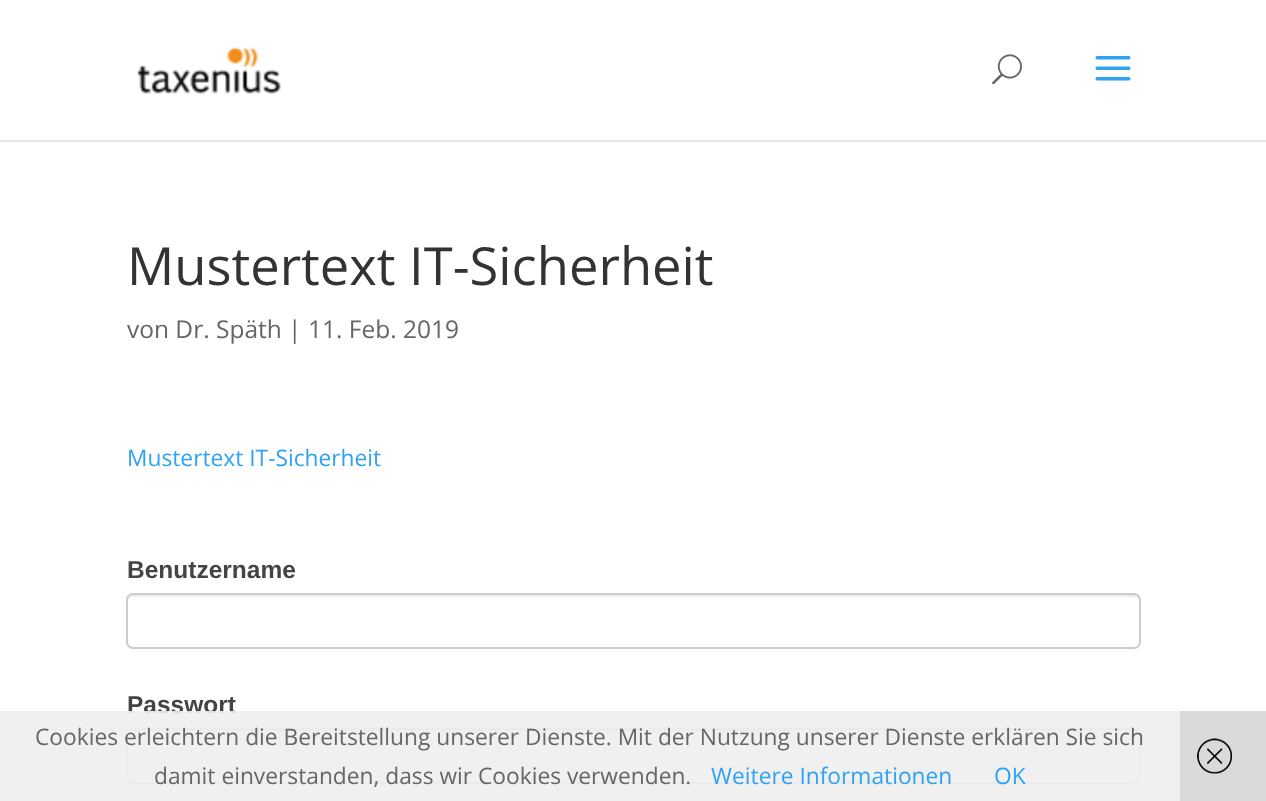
(async () => {
    const canvas = document.querySelector("canvas");
    canvas.width = 1266;
    canvas.height = 801;
    const context = canvas.getContext("2d");
    context.miterLimit = 4;
    context.fontKerning = "normal";
    function write(s, x, y, font, color) {
        context.font = font;
        context.fillStyle = color;
        context.fillText(s, x, y);
    }
    function block(x, y, w, h, color) {
        context.fillStyle = color;
        context.fillRect(x, y, w, h);
    }
    async function photo(src, x, y, w, h) {
        const img = new Image();
        img.src = src;
        await img.decode();
        context.drawImage(img, x, y, w, h);
    }

    block(0, 0, 1266, 801, "rgb(255, 255, 255)");
    block(0, 140, 1266, 2, "rgb(230, 230, 230)");
    await photo("media/1.png", 137, 46, 144, 48);
    await photo("media/2.png", 992, 54, 30, 31);
    await photo("media/3.png", 1095, 56, 36, 25);
    write("Mustertext IT-Sicherheit", 127, 285, "52.5px Open Sans", "rgb(51, 51, 51)");
    write("von Dr. Späth | 11. Feb. 2019", 127, 338, "24.5px Open Sans", "rgb(102, 102, 102)");
    write("Mustertext IT-Sicherheit", 127, 466, "22.75px Open Sans", "rgb(46, 163, 242)");
    write("Benutzername", 127, 578, "bold 24.5px Liberation Sans", "rgb(68, 68, 68)");
    context.fillStyle = "rgb(236, 236, 236)";
    context.beginPath();
    context.moveTo(133, 597);
    context.lineTo(1134, 597);
    context.bezierCurveTo(1137, 597, 1139, 599, 1139, 602);
    context.lineTo(1139, 600);
    context.bezierCurveTo(1139, 597, 1137, 595, 1134, 595);
    context.lineTo(133, 595);
    context.bezierCurveTo(130, 595, 128, 597, 128, 600);
    context.lineTo(128, 602);
    context.bezierCurveTo(128, 599, 130, 597, 133, 597);
    context.closePath();
    context.fill();
    context.beginPath();
    context.roundRect(127, 594, 1013, 54, 6);
    context.strokeStyle = "rgb(204, 204, 204)";
    context.lineWidth = 2;
    context.stroke();
    write("Passwort", 127, 713, "bold 24.5px Liberation Sans", "rgb(68, 68, 68)");
    context.fillStyle = "rgb(236, 236, 236)";
    context.beginPath();
    context.moveTo(133, 732);
    context.lineTo(1134, 732);
    context.bezierCurveTo(1137, 732, 1139, 734, 1139, 737);
    context.lineTo(1139, 735);
    context.bezierCurveTo(1139, 732, 1137, 730, 1134, 730);
    context.lineTo(133, 730);
    context.bezierCurveTo(130, 730, 128, 732, 128, 735);
    context.lineTo(128, 737);
    context.bezierCurveTo(128, 734, 130, 732, 133, 732);
    context.closePath();
    context.fill();
    context.beginPath();
    context.roundRect(127, 729, 1013, 54, 6);
    context.stroke();
    block(0, 711, 1180, 90, "rgba(238, 238, 238, 0.9)");
    write("Cookies erleichtern die Bereitstellung unserer Dienste. Mit der Nutzung unserer Dienste erklären Sie sich", 35, 745, "22.75px Open Sans", "rgb(102, 102, 102)");
    write("damit einverstanden, dass wir Cookies verwenden.", 154, 784, "22.75px Open Sans", "rgb(102, 102, 102)");
    write("Weitere Informationen", 711, 784, "22.75px Open Sans", "rgb(46, 163, 242)");
    write("OK", 994, 784, "22.75px Open Sans", "rgb(46, 163, 242)");
    block(1180, 711, 86, 90, "rgb(218, 218, 218)");
    await photo("media/4.png", 1197, 738, 35, 36);
})();
